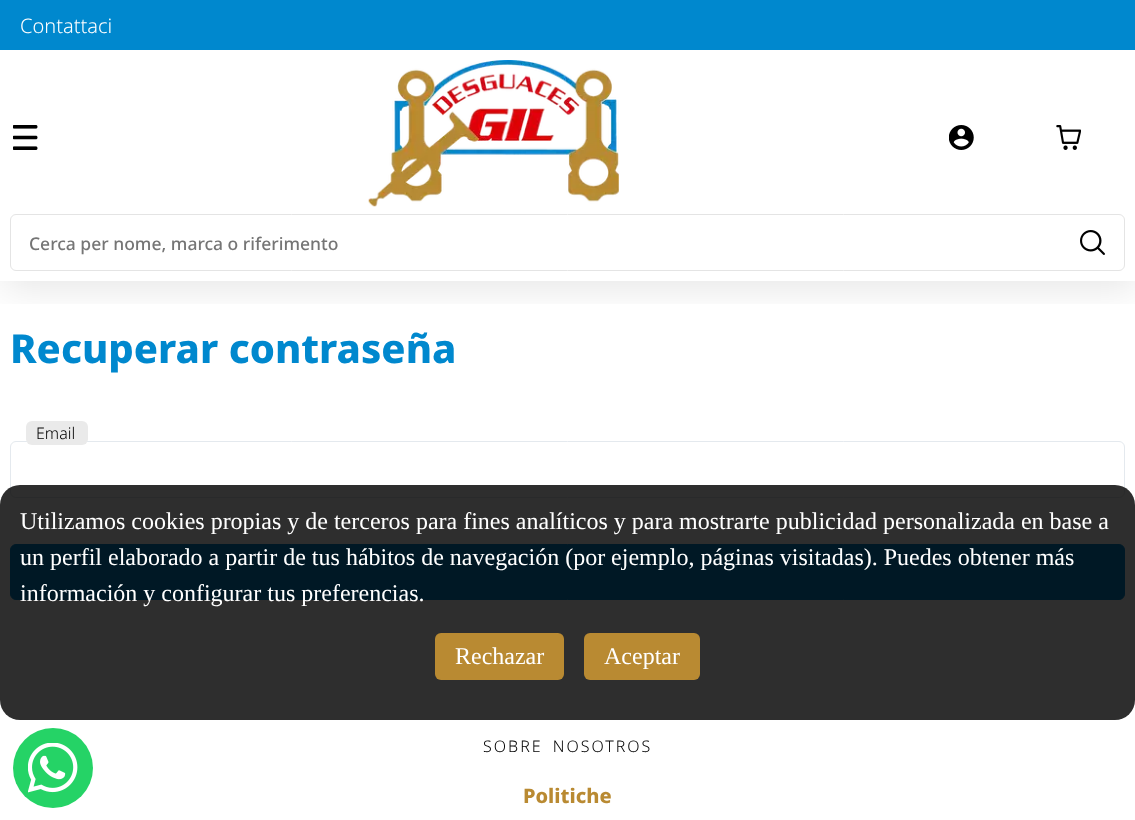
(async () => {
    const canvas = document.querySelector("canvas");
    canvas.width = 1135;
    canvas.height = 820;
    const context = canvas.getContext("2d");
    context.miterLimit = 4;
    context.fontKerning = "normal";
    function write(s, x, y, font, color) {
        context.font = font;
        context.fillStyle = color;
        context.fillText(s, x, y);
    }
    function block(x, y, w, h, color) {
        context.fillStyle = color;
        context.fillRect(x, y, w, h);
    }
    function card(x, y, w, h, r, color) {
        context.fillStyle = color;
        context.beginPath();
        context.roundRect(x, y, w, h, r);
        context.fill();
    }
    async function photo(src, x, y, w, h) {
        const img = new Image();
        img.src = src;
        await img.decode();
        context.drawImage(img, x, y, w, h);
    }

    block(0, 0, 1135, 820, "rgb(255, 255, 255)");
    context.save();
    context.beginPath();
    context.rect(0, 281, 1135, 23);
    context.clip();
    context.fillStyle = "rgba(0, 0, 0, 0.1)";
    context.filter = "blur(19px)";
    context.beginPath();
    context.rect(3, 6, 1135, 282);
    context.fill();
    context.filter = "none";
    context.restore();
    block(0, 0, 1135, 50, "rgb(0, 136, 206)");
    write("Contattaci", 20, 33, "300 20px Noto Sans", "rgb(255, 255, 255)");
    await photo("media/1.png", 13, 125, 25, 25);
    await photo("media/2.png", 368, 60, 251, 147);
    await photo("media/3.png", 949, 125, 25, 25);
    await photo("media/4.png", 1056, 125, 25, 25);
    context.beginPath();
    context.roundRect(10.5, 214.5, 1114, 56, 5.5);
    context.strokeStyle = "rgb(228, 228, 228)";
    context.stroke();
    write("Cerca per nome, marca o riferimento", 29, 250, "500 17.5px Noto Sans", "rgb(117, 117, 117)");
    await photo("media/5.png", 1080, 230, 25, 25);
    write("Recuperar contraseña", 10, 363, "800 40px Noto Sans", "rgb(0, 136, 206)");
    context.beginPath();
    context.roundRect(10.5, 441.5, 1114, 56, 5.5);
    context.strokeStyle = "rgb(228, 233, 238)";
    context.stroke();
    card(26, 421, 62, 24, 6, "rgb(234, 234, 234)");
    write("Email", 36, 439, "300 16px Noto Sans", "rgb(0, 0, 0)");
    context.fillStyle = "rgb(0, 136, 206)";
    context.beginPath();
    context.roundRect(10.5, 544.5, 1114, 55, 5.5);
    context.fill();
    context.strokeStyle = "rgb(0, 136, 206)";
    context.stroke();
    context.letterSpacing = "2px";
    context.wordSpacing = "4px";
    write("SOBRE NOSOTROS", 483, 752, "300 16px Noto Sans", "rgb(0, 0, 0)");
    context.letterSpacing = "0px";
    context.wordSpacing = "0px";
    write("Politiche", 523, 803, "800 20px Noto Sans", "rgb(185, 138, 50)");
    card(0, 485, 1135, 235, 20, "rgba(0, 0, 0, 0.82)");
    write("Utilizamos cookies propias y de terceros para fines analíticos y para mostrarte publicidad personalizada en base a", 20, 529, "24px Liberation Serif", "rgb(255, 255, 255)");
    write("un perfil elaborado a partir de tus hábitos de navegación (por ejemplo, páginas visitadas). Puedes obtener más", 20, 565, "24px Liberation Serif", "rgb(255, 255, 255)");
    write("información y configurar tus preferencias.", 20, 601, "24px Liberation Serif", "rgb(255, 255, 255)");
    card(435, 633, 129, 47, 6, "rgb(185, 138, 50)");
    write("Rechazar", 455, 664, "24px Liberation Serif", "rgb(255, 255, 255)");
    card(584, 633, 116, 47, 6, "rgb(185, 138, 50)");
    write("Aceptar", 604, 664, "24px Liberation Serif", "rgb(255, 255, 255)");
    context.fillStyle = "rgb(37, 211, 102)";
    context.beginPath();
    context.arc(53, 768, 40, 0, Math.PI * 2);
    context.fill();
    await photo("media/6.png", 28, 743, 50, 50);
})();
